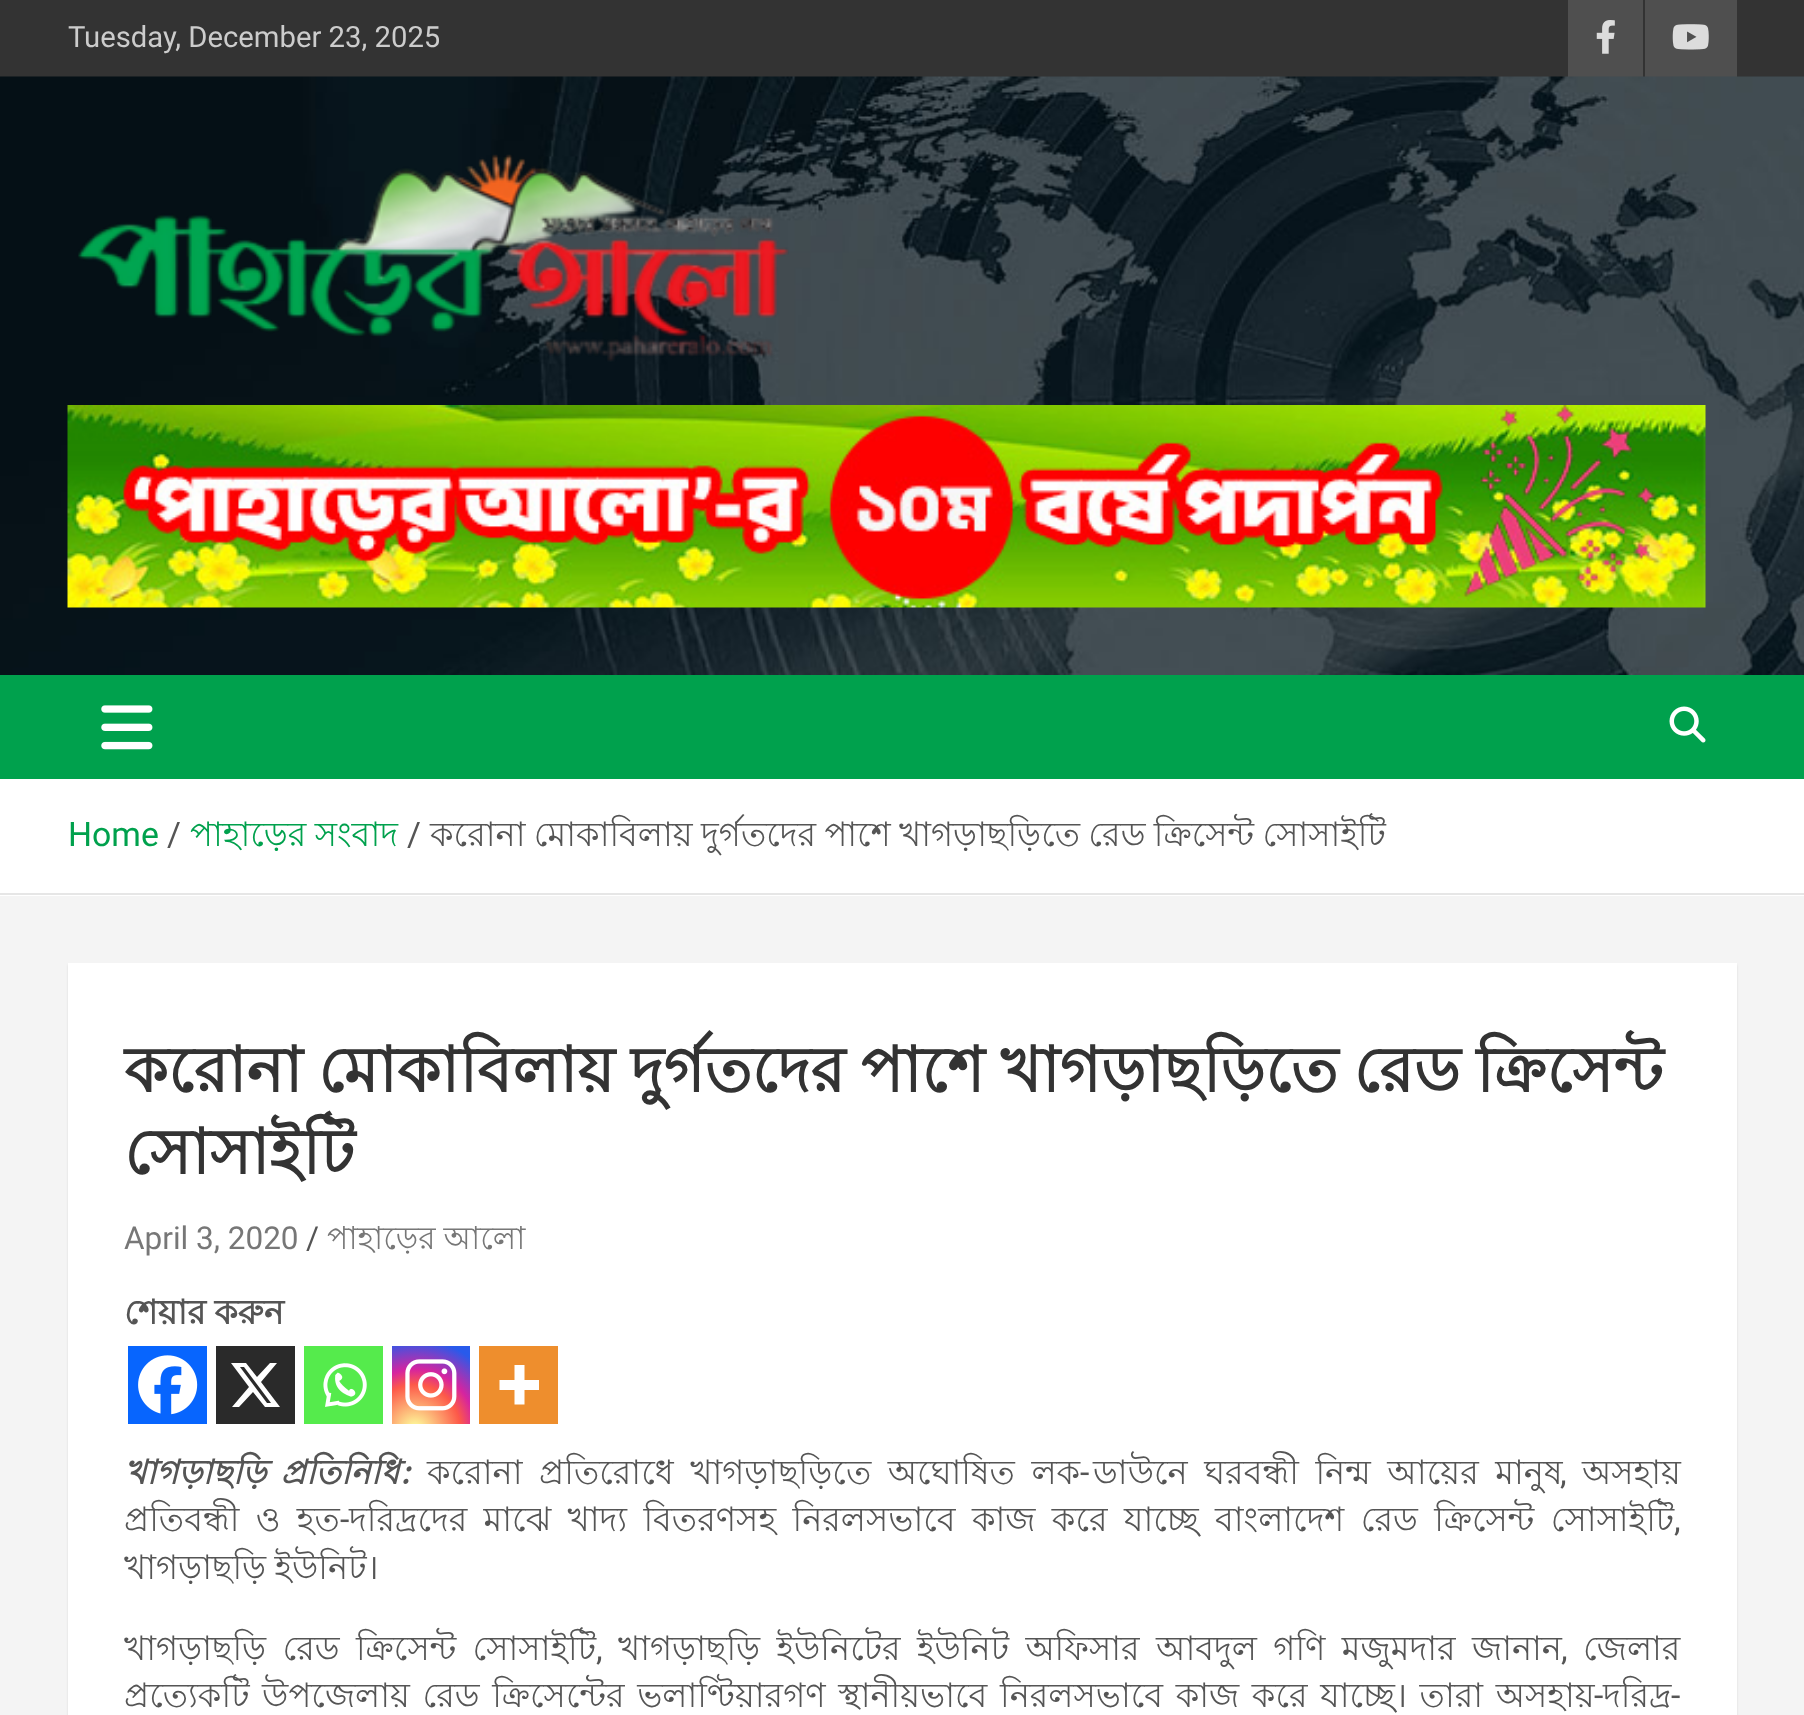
(async () => {
    const canvas = document.querySelector("canvas");
    canvas.width = 1804;
    canvas.height = 1715;
    const context = canvas.getContext("2d");
    context.miterLimit = 4;
    context.fontKerning = "normal";
    function write(s, x, y, font, color) {
        context.font = font;
        context.fillStyle = color;
        context.fillText(s, x, y);
    }
    function block(x, y, w, h, color) {
        context.fillStyle = color;
        context.fillRect(x, y, w, h);
    }
    async function photo(src, x, y, w, h) {
        const img = new Image();
        img.src = src;
        await img.decode();
        context.drawImage(img, x, y, w, h);
    }
    let gradient;

    block(0, 0, 1804, 1715, "rgb(244, 244, 244)");
    block(0, 0, 1804, 77, "rgb(51, 51, 51)");
    write("Tuesday, December 23, 2025", 68, 47, "29.25px Roboto", "rgb(204, 204, 204)");
    block(1568, 0, 75, 77, "rgb(79, 79, 79)");
    await photo("media/1.png", 1596, 20, 19, 34);
    block(1645, 0, 92, 77, "rgb(79, 79, 79)");
    await photo("media/2.png", 1672, 24, 37, 26);
    await photo("media/3.png", 0, 76, 1804, 599);
    await photo("media/4.png", 78, 154, 711, 208);
    await photo("media/5.png", 67, 405, 1639, 203);
    block(0, 675, 1804, 104, "rgb(0, 161, 77)");
    await photo("media/6.png", 101, 705, 52, 45);
    await photo("media/7.png", 1669, 706, 37, 37);
    block(0, 779, 1804, 117, "rgb(255, 255, 255)");
    block(0, 893, 1804, 2, "rgb(230, 230, 230)");
    write("Home", 68, 846, "33.75px Roboto", "rgb(0, 161, 77)");
    write("/", 167, 846, "33.75px Roboto", "rgb(85, 85, 85)");
    context.wordSpacing = "-1px";
    write("পাহাড়ের সংবাদ", 190, 846, "33.75px Lohit Bengali", "rgb(0, 161, 77)");
    context.wordSpacing = "0px";
    write("/", 407, 846, "33.75px Roboto", "rgb(85, 85, 85)");
    context.wordSpacing = "-1px";
    write("করোনা মোকাবিলায় দুর্গতদের পাশে খাগড়াছড়িতে রেড ক্রিসেন্ট সোসাইটি", 430, 846, "33.75px Lohit Bengali", "rgb(85, 85, 85)");
    context.fillStyle = "rgba(0, 0, 0, 0.1)";
    context.filter = "blur(1px)";
    context.beginPath();
    context.rect(68, 965, 1669, 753);
    context.fill();
    context.filter = "none";
    block(68, 963, 1669, 752, "rgb(255, 255, 255)");
    context.wordSpacing = "-1.75px";
    write("করোনা মোকাবিলায় দুর্গতদের পাশে খাগড়াছড়িতে রেড ক্রিসেন্ট", 124, 1092, "bold 63px Lohit Bengali", "rgb(51, 51, 51)");
    context.wordSpacing = "0px";
    write("সোসাইটি", 124, 1174, "bold 63px Lohit Bengali", "rgb(51, 51, 51)");
    write("April 3, 2020", 124, 1249, "31.5px Roboto", "rgb(119, 119, 119)");
    write("/", 306, 1249, "31.5px Roboto", "rgb(85, 85, 85)");
    context.wordSpacing = "-1px";
    write("পাহাড়ের আলো", 327, 1249, "31.5px Lohit Bengali", "rgb(119, 119, 119)");
    write("শেয়ার করুন", 124, 1324, "bold 33.75px Lohit Bengali", "rgb(85, 85, 85)");
    block(128, 1346, 79, 78, "rgb(7, 101, 254)");
    await photo("media/8.png", 138, 1355, 60, 60);
    block(216, 1346, 79, 78, "rgb(42, 42, 42)");
    context.fillStyle = "rgb(255, 255, 255)";
    context.beginPath();
    context.moveTo(270, 1363);
    context.lineTo(277, 1363);
    context.lineTo(261, 1382);
    context.lineTo(280, 1407);
    context.lineTo(265, 1407);
    context.lineTo(253, 1392);
    context.lineTo(239, 1407);
    context.lineTo(232, 1407);
    context.lineTo(249, 1387);
    context.lineTo(231, 1363);
    context.lineTo(246, 1363);
    context.lineTo(257, 1377);
    context.closePath();
    context.moveTo(267, 1403);
    context.lineTo(271, 1403);
    context.lineTo(244, 1367);
    context.lineTo(240, 1367);
    context.closePath();
    context.fill();
    block(304, 1346, 79, 78, "rgb(85, 235, 76)");
    await photo("media/9.png", 323, 1363, 44, 44);
    gradient = context.createRadialGradient(415, 1430, 0, 415, 1430, 101);
    gradient.addColorStop(0, "rgb(253, 244, 151)");
    gradient.addColorStop(0.05, "rgb(253, 244, 151)");
    gradient.addColorStop(0.45, "rgb(253, 89, 73)");
    gradient.addColorStop(0.6, "rgb(214, 36, 159)");
    gradient.addColorStop(0.9, "rgb(40, 90, 235)");
    context.fillStyle = gradient;
    context.fillRect(392, 1346, 78, 78);
    await photo("media/10.png", 405, 1359, 52, 52);
    block(479, 1346, 79, 78, "rgb(238, 142, 45)");
    context.fillStyle = "rgb(255, 255, 255)";
    context.beginPath();
    context.moveTo(524.5, 1380);
    context.lineTo(524.5, 1365);
    context.lineTo(514.5, 1365);
    context.lineTo(514.5, 1380);
    context.lineTo(499.5, 1380);
    context.lineTo(499.5, 1390);
    context.lineTo(514.5, 1390);
    context.lineTo(514.5, 1404.5);
    context.lineTo(524.5, 1404.5);
    context.lineTo(524.5, 1390);
    context.lineTo(539, 1390);
    context.lineTo(539, 1380);
    context.closePath();
    context.fill("evenodd");
    context.wordSpacing = "5px";
    write("খাগড়াছড়ি প্রতিনিধি:", 124, 1484, "italic bold 33.75px Lohit Bengali", "rgb(85, 85, 85)");
    context.wordSpacing = "7.25px";
    write("করোনা প্রতিরোধে খাগড়াছড়িতে অঘোষিত লক", 427, 1484, "33.75px Lohit Bengali", "rgb(85, 85, 85)");
    write("ডাউনে ঘরবন্ধী নিন্ম আয়ের মানুষ", 1093, 1484, "33.75px Lohit Bengali", "rgb(85, 85, 85)");
    context.wordSpacing = "0px";
    write("অসহায়", 1582, 1484, "33.75px Lohit Bengali", "rgb(85, 85, 85)");
    write("-", 1080, 1484, "33.75px Roboto", "rgb(85, 85, 85)");
    write(",", 1560, 1484, "33.75px Roboto", "rgb(85, 85, 85)");
    context.wordSpacing = "7px";
    write("প্রতিবন্ধী ও হত", 124, 1531, "33.75px Lohit Bengali", "rgb(85, 85, 85)");
    context.wordSpacing = "0px";
    write("-", 340, 1531, "33.75px Roboto", "rgb(85, 85, 85)");
    context.wordSpacing = "7px";
    write("দরিদ্রদের মাঝে খাদ্য বিতরণসহ নিরলসভাবে কাজ করে যাচ্ছে বাংলাদেশ রেড ক্রিসেন্ট সোসাইটি", 349, 1531, "33.75px Lohit Bengali", "rgb(85, 85, 85)");
    context.wordSpacing = "0px";
    write(",", 1674, 1531, "33.75px Roboto", "rgb(85, 85, 85)");
    context.wordSpacing = "-1px";
    write("খাগড়াছড়ি ইউনিট।", 124, 1579, "33.75px Lohit Bengali", "rgb(85, 85, 85)");
    context.wordSpacing = "7px";
    write("খাগড়াছড়ি রেড ক্রিসেন্ট সোসাইটি", 124, 1660, "33.75px Lohit Bengali", "rgb(85, 85, 85)");
    context.wordSpacing = "0px";
    write(",", 596, 1660, "33.75px Roboto", "rgb(85, 85, 85)");
    context.wordSpacing = "7px";
    write("খাগড়াছড়ি ইউনিটের ইউনিট অফিসার আবদুল গণি মজুমদার জানান", 618, 1660, "33.75px Lohit Bengali", "rgb(85, 85, 85)");
    context.wordSpacing = "0px";
    write(",", 1561, 1660, "33.75px Roboto", "rgb(85, 85, 85)");
    write("জেলার", 1583, 1660, "33.75px Lohit Bengali", "rgb(85, 85, 85)");
    context.wordSpacing = "3.25px";
    write("প্রত্যেকটি উপজেলায় রেড ক্রিসেন্টের ভলাণ্টিয়ারগণ স্থানীয়ভাবে নিরলসভাবে কাজ করে যাচ্ছে। তারা অসহায়", 124, 1707, "33.75px Lohit Bengali", "rgb(85, 85, 85)");
    context.wordSpacing = "0px";
    write("-", 1594, 1707, "33.75px Roboto", "rgb(85, 85, 85)");
    write("দরিদ্র", 1603, 1707, "33.75px Lohit Bengali", "rgb(85, 85, 85)");
    write("-", 1671, 1707, "33.75px Roboto", "rgb(85, 85, 85)");
})();
